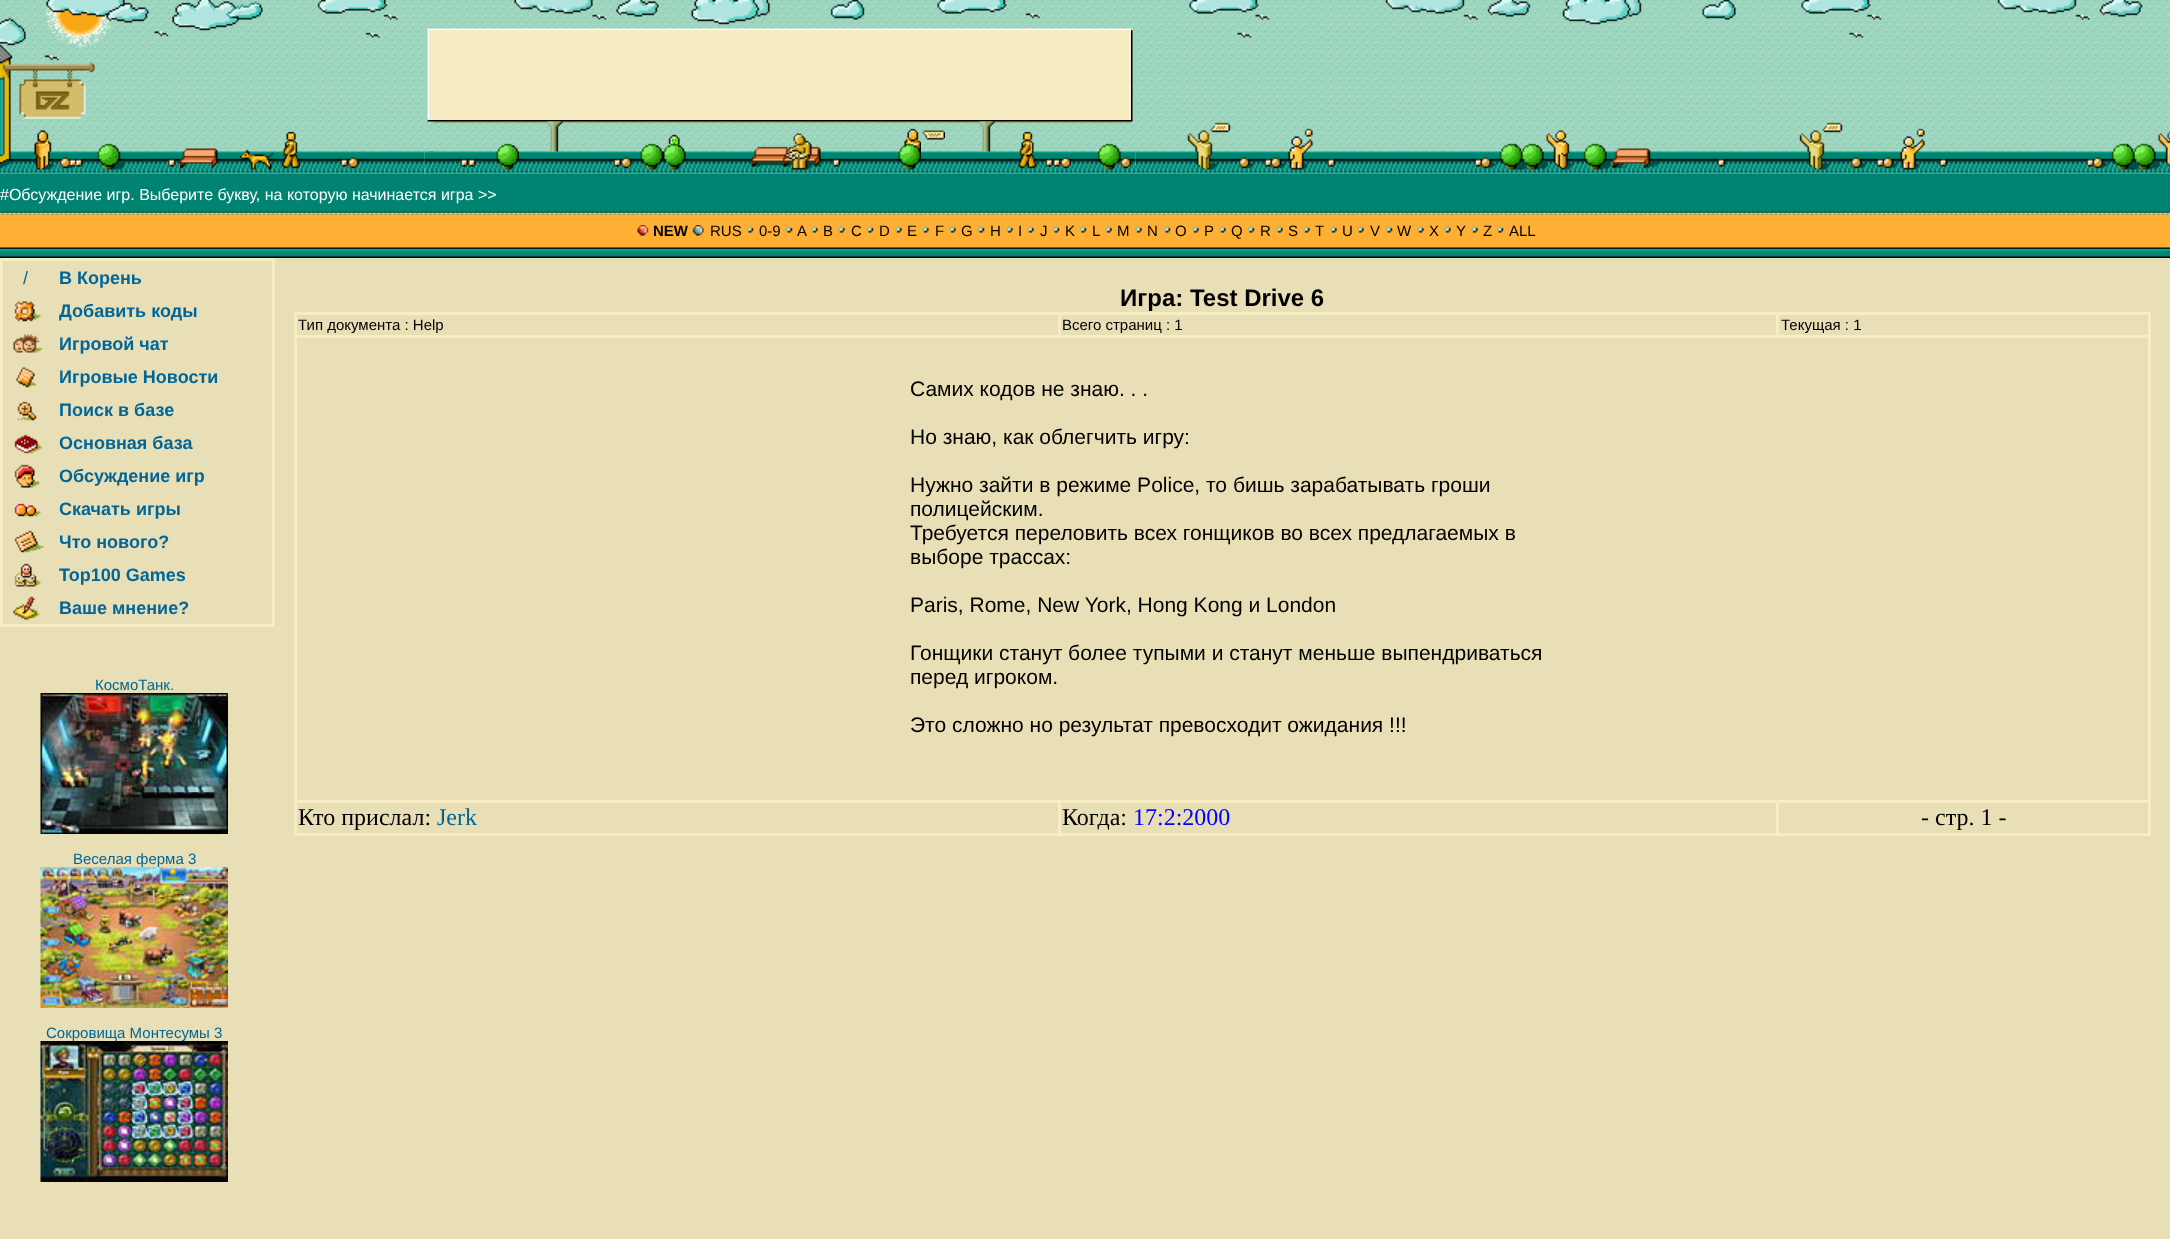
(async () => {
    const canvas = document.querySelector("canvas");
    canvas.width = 2170;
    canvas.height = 1239;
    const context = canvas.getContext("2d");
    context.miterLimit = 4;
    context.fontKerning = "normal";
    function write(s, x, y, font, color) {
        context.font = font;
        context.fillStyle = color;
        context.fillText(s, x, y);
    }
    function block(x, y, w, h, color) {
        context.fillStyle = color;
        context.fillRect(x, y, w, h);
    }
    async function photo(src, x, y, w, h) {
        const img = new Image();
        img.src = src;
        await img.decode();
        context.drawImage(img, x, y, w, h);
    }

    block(0, 0, 2170, 1239, "rgb(255, 255, 255)");
    await photo("media/1.png", 0, 0, 2170, 174);
    await photo("media/2.png", 0, 0, 150, 174);
    await photo("media/3.png", 154, 0, 244, 38);
    await photo("media/4.png", 150, 151, 275, 23);
    await photo("media/5.png", 168, 158, 8, 9);
    await photo("media/6.png", 180, 148, 38, 21);
    await photo("media/7.png", 240, 149, 34, 21);
    await photo("media/8.png", 282, 131, 18, 38);
    await photo("media/9.png", 340, 158, 8, 9);
    await photo("media/10.png", 348, 157, 11, 12);
    await photo("media/11.png", 424, 28, 5, 146);
    await photo("media/12.png", 429, 0, 702, 30);
    await photo("media/15.png", 1135, 122, 1035, 52);
    await photo("media/13.png", 1131, 28, 5, 146);
    await photo("media/14.png", 1189, 0, 954, 38);
    block(429, 30, 702, 90, "rgb(247, 236, 194)");
    await photo("media/16.png", 429, 120, 702, 54);
    await photo("media/17.png", 429, 121, 5, 52);
    await photo("media/18.png", 460, 158, 8, 9);
    await photo("media/19.png", 468, 158, 8, 9);
    await photo("media/20.png", 496, 143, 23, 27);
    await photo("media/21.png", 547, 121, 16, 31);
    await photo("media/22.png", 613, 158, 8, 9);
    await photo("media/23.png", 621, 157, 11, 12);
    await photo("media/24.png", 640, 143, 23, 27);
    await photo("media/25.png", 663, 134, 23, 36);
    await photo("media/26.png", 751, 133, 70, 37);
    await photo("media/27.png", 832, 158, 8, 9);
    await photo("media/28.png", 898, 128, 23, 42);
    await photo("media/29.png", 922, 130, 23, 10);
    await photo("media/30.png", 979, 121, 16, 31);
    await photo("media/31.png", 1018, 131, 19, 38);
    await photo("media/22.png", 1045, 158, 8, 9);
    await photo("media/19.png", 1053, 158, 8, 9);
    await photo("media/32.png", 1060, 157, 11, 12);
    await photo("media/33.png", 1098, 143, 23, 27);
    await photo("media/34.png", 1120, 157, 11, 12);
    block(0, 174, 2170, 41, "rgb(0, 131, 113)");
    await photo("media/35.png", 0, 211, 2170, 4);
    write("#Обсуждение игр. Выберите букву, на которую начинается игра >>", 0, 200, "16px Liberation Sans", "rgb(255, 255, 255)");
    block(0, 215, 2170, 31, "rgb(255, 176, 52)");
    block(0, 214, 2170, 1, "rgba(255, 175, 52, 0.5)");
    await photo("media/36.png", 637, 225, 12, 11);
    write("NEW", 653, 236, "bold 15px Liberation Sans", "rgb(0, 0, 0)");
    await photo("media/37.png", 692, 225, 12, 11);
    write("RUS", 710, 236, "15px Liberation Sans", "rgb(0, 0, 0)");
    await photo("media/38.png", 746, 226, 8, 7);
    write("0-9", 759, 236, "15px Liberation Sans", "rgb(0, 0, 0)");
    await photo("media/39.png", 785, 226, 8, 7);
    write("A", 797, 236, "15px Liberation Sans", "rgb(0, 0, 0)");
    await photo("media/40.png", 811, 226, 7, 7);
    write("B", 823, 236, "15px Liberation Sans", "rgb(0, 0, 0)");
    await photo("media/40.png", 838, 226, 7, 7);
    write("C", 851, 236, "15px Liberation Sans", "rgb(0, 0, 0)");
    await photo("media/39.png", 866, 226, 8, 7);
    write("D", 879, 236, "15px Liberation Sans", "rgb(0, 0, 0)");
    await photo("media/40.png", 895, 226, 7, 7);
    write("E", 907, 236, "15px Liberation Sans", "rgb(0, 0, 0)");
    await photo("media/40.png", 922, 226, 7, 7);
    write("F", 935, 236, "15px Liberation Sans", "rgb(0, 0, 0)");
    await photo("media/40.png", 949, 226, 7, 7);
    write("G", 961, 236, "15px Liberation Sans", "rgb(0, 0, 0)");
    await photo("media/39.png", 977, 226, 8, 7);
    write("H", 990, 236, "15px Liberation Sans", "rgb(0, 0, 0)");
    await photo("media/40.png", 1006, 226, 7, 7);
    write("I", 1018, 236, "15px Liberation Sans", "rgb(0, 0, 0)");
    await photo("media/41.png", 1027, 226, 7, 7);
    write("J", 1040, 236, "15px Liberation Sans", "rgb(0, 0, 0)");
    await photo("media/38.png", 1052, 226, 8, 7);
    write("K", 1065, 236, "15px Liberation Sans", "rgb(0, 0, 0)");
    await photo("media/39.png", 1079, 226, 8, 7);
    write("L", 1092, 236, "15px Liberation Sans", "rgb(0, 0, 0)");
    await photo("media/41.png", 1105, 226, 7, 7);
    write("M", 1117, 236, "15px Liberation Sans", "rgb(0, 0, 0)");
    await photo("media/41.png", 1135, 226, 7, 7);
    write("N", 1147, 236, "15px Liberation Sans", "rgb(0, 0, 0)");
    await photo("media/38.png", 1163, 226, 8, 7);
    write("O", 1175, 236, "15px Liberation Sans", "rgb(0, 0, 0)");
    await photo("media/41.png", 1192, 226, 7, 7);
    write("P", 1204, 236, "15px Liberation Sans", "rgb(0, 0, 0)");
    await photo("media/41.png", 1219, 226, 7, 7);
    write("Q", 1231, 236, "15px Liberation Sans", "rgb(0, 0, 0)");
    await photo("media/39.png", 1247, 226, 8, 7);
    write("R", 1260, 236, "15px Liberation Sans", "rgb(0, 0, 0)");
    await photo("media/42.png", 1276, 226, 7, 7);
    write("S", 1288, 236, "15px Liberation Sans", "rgb(0, 0, 0)");
    await photo("media/40.png", 1303, 226, 7, 7);
    write("T", 1315, 236, "15px Liberation Sans", "rgb(0, 0, 0)");
    await photo("media/41.png", 1330, 226, 7, 7);
    write("U", 1342, 236, "15px Liberation Sans", "rgb(0, 0, 0)");
    await photo("media/41.png", 1357, 226, 7, 7);
    write("V", 1370, 236, "15px Liberation Sans", "rgb(0, 0, 0)");
    await photo("media/38.png", 1385, 226, 8, 7);
    write("W", 1397, 236, "15px Liberation Sans", "rgb(0, 0, 0)");
    await photo("media/40.png", 1417, 226, 7, 7);
    write("X", 1429, 236, "15px Liberation Sans", "rgb(0, 0, 0)");
    await photo("media/40.png", 1444, 226, 7, 7);
    write("Y", 1456, 236, "15px Liberation Sans", "rgb(0, 0, 0)");
    await photo("media/41.png", 1471, 226, 7, 7);
    write("Z", 1483, 236, "15px Liberation Sans", "rgb(0, 0, 0)");
    await photo("media/38.png", 1496, 226, 8, 7);
    write("ALL", 1509, 236, "15px Liberation Sans", "rgb(0, 0, 0)");
    await photo("media/43.png", 0, 246, 2170, 12);
    block(0, 258, 2170, 981, "rgb(233, 223, 183)");
    block(0, 258, 275, 369, "rgb(247, 236, 194)");
    block(3, 261, 269, 363, "rgb(233, 223, 183)");
    write("/", 23, 284, "18px Liberation Sans", "rgb(0, 102, 153)");
    write("В Корень", 59, 284, "bold 18px Liberation Sans", "rgb(0, 102, 153)");
    await photo("media/44.png", 14, 301, 27, 21);
    write("Добавить коды", 59, 317, "bold 18px Liberation Sans", "rgb(0, 102, 153)");
    await photo("media/45.png", 13, 334, 30, 19);
    write("Игровой чат", 59, 350, "bold 18px Liberation Sans", "rgb(0, 102, 153)");
    await photo("media/46.png", 16, 367, 21, 21);
    write("Игровые Новости", 59, 383, "bold 18px Liberation Sans", "rgb(0, 102, 153)");
    await photo("media/47.png", 17, 401, 20, 20);
    write("Поиск в базе", 59, 416, "bold 18px Liberation Sans", "rgb(0, 102, 153)");
    await photo("media/48.png", 14, 434, 29, 20);
    write("Основная база", 59, 449, "bold 18px Liberation Sans", "rgb(0, 102, 153)");
    await photo("media/49.png", 14, 464, 26, 24);
    write("Обсуждение игр", 59, 482, "bold 18px Liberation Sans", "rgb(0, 102, 153)");
    await photo("media/50.png", 14, 503, 27, 14);
    write("Скачать игры", 59, 515, "bold 18px Liberation Sans", "rgb(0, 102, 153)");
    await photo("media/51.png", 14, 530, 30, 23);
    write("Что нового?", 59, 548, "bold 18px Liberation Sans", "rgb(0, 102, 153)");
    await photo("media/52.png", 14, 563, 27, 24);
    write("Top100 Games", 59, 581, "bold 18px Liberation Sans", "rgb(0, 102, 153)");
    await photo("media/53.png", 13, 596, 27, 24);
    write("Ваше мнение?", 59, 614, "bold 18px Liberation Sans", "rgb(0, 102, 153)");
    write("КосмоТанк.", 95, 690, "15px Liberation Sans", "rgb(0, 102, 153)");
    await photo("media/54.png", 40, 693, 188, 141);
    write("Веселая ферма 3", 73, 864, "15px Liberation Sans", "rgb(0, 102, 153)");
    await photo("media/55.png", 40, 867, 188, 141);
    write("Сокровища Монтесумы 3", 46, 1038, "15px Liberation Sans", "rgb(0, 102, 153)");
    await photo("media/56.png", 40, 1041, 188, 141);
    write("Игра: Test Drive 6", 1120, 306, "bold 24px Liberation Sans", "rgb(0, 0, 0)");
    block(294, 312, 1857, 524, "rgb(247, 236, 194)");
    block(297, 315, 761, 20, "rgb(233, 223, 183)");
    write("Тип документа : Help", 298, 330, "15px Liberation Sans", "rgb(0, 0, 0)");
    block(1061, 315, 715, 20, "rgb(233, 223, 183)");
    write("Всего страниц : 1", 1062, 330, "15px Liberation Sans", "rgb(0, 0, 0)");
    block(1779, 315, 369, 20, "rgb(233, 223, 183)");
    write("Текущая : 1", 1781, 330, "15px Liberation Sans", "rgb(0, 0, 0)");
    block(297, 338, 1851, 462, "rgb(233, 223, 183)");
    write("Самих кодов не знаю. . .", 910, 396, "21px Liberation Sans", "rgb(0, 0, 0)");
    write("Но знаю, как облегчить игру:", 910, 444, "21px Liberation Sans", "rgb(0, 0, 0)");
    write("Нужно зайти в режиме Police, то бишь зарабатывать гроши", 910, 492, "21px Liberation Sans", "rgb(0, 0, 0)");
    write("полицейским.", 910, 516, "21px Liberation Sans", "rgb(0, 0, 0)");
    write("Требуется переловить всех гонщиков во всех предлагаемых в", 910, 540, "21px Liberation Sans", "rgb(0, 0, 0)");
    write("выборе трассах:", 910, 564, "21px Liberation Sans", "rgb(0, 0, 0)");
    write("Paris, Rome, New York, Hong Kong и London", 910, 612, "21px Liberation Sans", "rgb(0, 0, 0)");
    write("Гонщики станут более тупыми и станут меньше выпендриваться", 910, 660, "21px Liberation Sans", "rgb(0, 0, 0)");
    write("перед игроком.", 910, 684, "21px Liberation Sans", "rgb(0, 0, 0)");
    write("Это сложно но результат превосходит ожидания !!!", 910, 732, "21px Liberation Sans", "rgb(0, 0, 0)");
    block(297, 803, 761, 30, "rgb(233, 223, 183)");
    write("Кто прислал:", 298, 825, "24px Liberation Serif", "rgb(0, 0, 0)");
    write("Jerk", 437, 825, "24px Liberation Serif", "rgb(0, 102, 153)");
    block(1061, 803, 715, 30, "rgb(233, 223, 183)");
    write("Когда:", 1062, 825, "24px Liberation Serif", "rgb(0, 0, 0)");
    write("17:2:2000", 1133, 825, "24px Liberation Serif", "rgb(0, 0, 255)");
    block(1779, 803, 369, 30, "rgb(233, 223, 183)");
    write("- стр. 1 -", 1921, 825, "24px Liberation Serif", "rgb(0, 0, 0)");
})();
